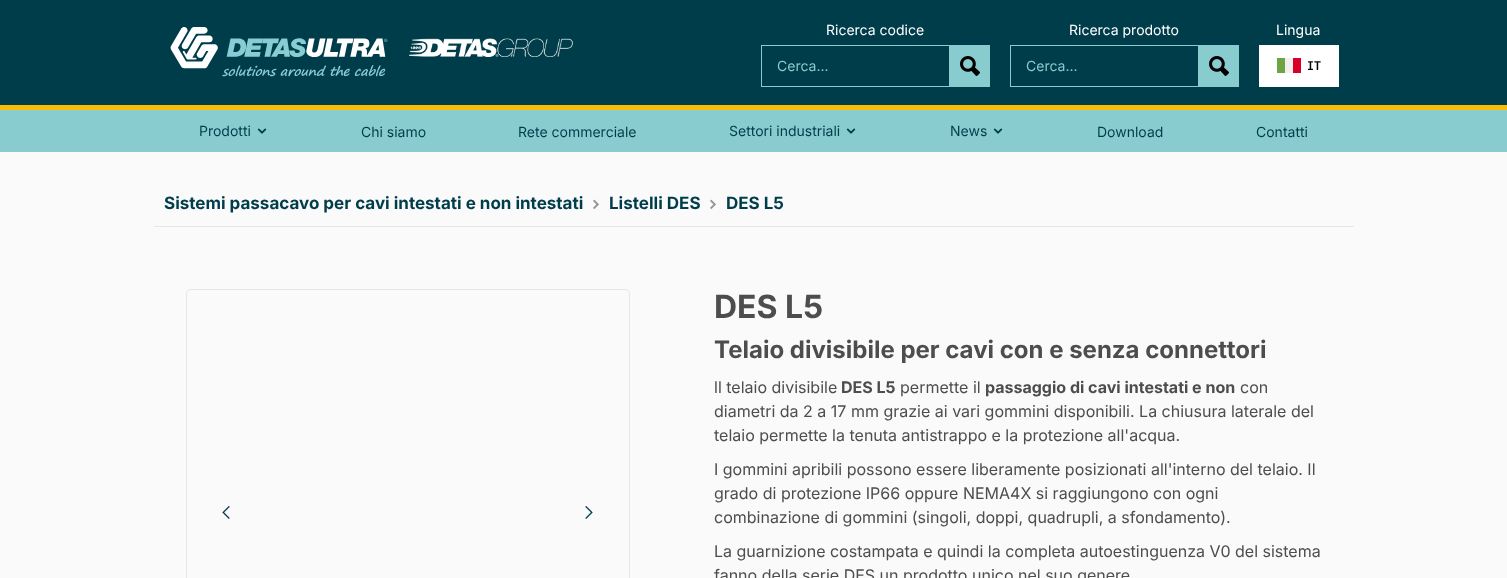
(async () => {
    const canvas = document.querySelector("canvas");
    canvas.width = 1507;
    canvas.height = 578;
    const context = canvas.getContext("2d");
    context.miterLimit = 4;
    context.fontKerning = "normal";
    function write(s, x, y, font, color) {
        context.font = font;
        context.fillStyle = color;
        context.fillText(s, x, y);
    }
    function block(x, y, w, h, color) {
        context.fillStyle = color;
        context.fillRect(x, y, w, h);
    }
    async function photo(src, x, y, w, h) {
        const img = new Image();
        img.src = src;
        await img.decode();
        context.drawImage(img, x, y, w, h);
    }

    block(0, 0, 1507, 578, "rgb(250, 250, 250)");
    block(0, 0, 1507, 105, "rgb(0, 61, 74)");
    block(0, 105, 1507, 5, "rgb(250, 187, 0)");
    await photo("media/1.png", 170, 27, 218, 50);
    await photo("media/2.png", 409, 38, 164, 19);
    write("Ricerca codice", 826, 35, "14px Inter", "rgb(255, 255, 255)");
    context.strokeStyle = "rgb(137, 204, 207)";
    context.strokeRect(761.5, 45.5, 188, 41);
    write("Cerca...", 777, 71, "14px Inter", "rgb(137, 204, 207)");
    block(950, 45, 40, 42, "rgb(137, 204, 207)");
    await photo("media/3.png", 960, 56, 20, 20);
    write("Ricerca prodotto", 1069, 35, "14px Inter", "rgb(255, 255, 255)");
    context.strokeRect(1010.5, 45.5, 188, 41);
    write("Cerca...", 1026, 71, "14px Inter", "rgb(137, 204, 207)");
    block(1199, 45, 40, 42, "rgb(137, 204, 207)");
    await photo("media/3.png", 1209, 56, 20, 20);
    write("Lingua", 1276, 35, "14px Inter", "rgb(255, 255, 255)");
    block(1259, 45, 80, 42, "rgb(255, 255, 255)");
    await photo("media/4.png", 1277, 58, 24, 15);
    write("IT", 1307, 70, "bold 14px Inconsolata", "rgb(0, 0, 0)");
    block(0, 110, 1507, 42, "rgb(137, 204, 207)");
    write("Prodotti", 199, 136, "14px Inter", "rgb(0, 61, 74)");
    await photo("media/5.png", 257, 128, 10, 6);
    write("Chi siamo", 361, 137, "14px Inter", "rgb(0, 61, 74)");
    write("Rete commerciale", 518, 137, "14px Inter", "rgb(0, 61, 74)");
    write("Settori industriali", 729, 136, "14px Inter", "rgb(0, 61, 74)");
    await photo("media/5.png", 846, 128, 10, 6);
    write("News", 950, 136, "14px Inter", "rgb(0, 61, 74)");
    await photo("media/5.png", 993, 128, 10, 6);
    write("Download", 1097, 137, "14px Inter", "rgb(0, 61, 74)");
    write("Contatti", 1256, 137, "14px Inter", "rgb(0, 61, 74)");
    block(154, 226, 1200, 1, "rgb(230, 230, 230)");
    write("Sistemi passacavo per cavi intestati e non intestati", 164, 209, "bold 17px Inter", "rgb(0, 61, 74)");
    await photo("media/6.png", 593, 199, 6, 10);
    write("Listelli DES", 609, 209, "bold 17px Inter", "rgb(0, 61, 74)");
    await photo("media/6.png", 710, 199, 6, 10);
    write("DES L5", 726, 209, "bold 17px Inter", "rgb(0, 61, 74)");
    context.beginPath();
    context.roundRect(186.5, 289.5, 443, 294, 4.5);
    context.strokeStyle = "rgb(230, 230, 230)";
    context.stroke();
    await photo("media/7.png", 222, 506, 8, 13);
    await photo("media/8.png", 585, 506, 8, 13);
    write("DES L5", 714, 318, "bold 32px Inter", "rgb(77, 77, 77)");
    write("Telaio divisibile per cavi con e senza connettori", 714, 358, "bold 24px Inter", "rgb(77, 77, 77)");
    write("ll telaio divisibile", 714, 393, "16px Inter", "rgb(77, 77, 77)");
    write("DES L5", 841, 393, "bold 16px Inter", "rgb(77, 77, 77)");
    write("permette il", 900, 393, "16px Inter", "rgb(77, 77, 77)");
    write("passaggio di cavi intestati e non", 985, 393, "bold 16px Inter", "rgb(77, 77, 77)");
    write("con", 1240, 393, "16px Inter", "rgb(77, 77, 77)");
    write("diametri da 2 a 17 mm grazie ai vari gommini disponibili. La chiusura laterale del", 714, 417, "16px Inter", "rgb(77, 77, 77)");
    write("telaio permette la tenuta antistrappo e la protezione all'acqua.", 714, 441, "16px Inter", "rgb(77, 77, 77)");
    write("I gommini apribili possono essere liberamente posizionati all'interno del telaio. Il", 714, 475, "16px Inter", "rgb(77, 77, 77)");
    write("grado di protezione IP66 oppure NEMA4X si raggiungono con ogni", 714, 499, "16px Inter", "rgb(77, 77, 77)");
    write("combinazione di gommini (singoli, doppi, quadrupli, a sfondamento).", 714, 523, "16px Inter", "rgb(77, 77, 77)");
    write("La guarnizione costampata e quindi la completa autoestinguenza V0 del sistema", 714, 557, "16px Inter", "rgb(77, 77, 77)");
    write("fanno della serie DES un prodotto unico nel suo genere", 714, 581, "16px Inter", "rgb(77, 77, 77)");
})();
